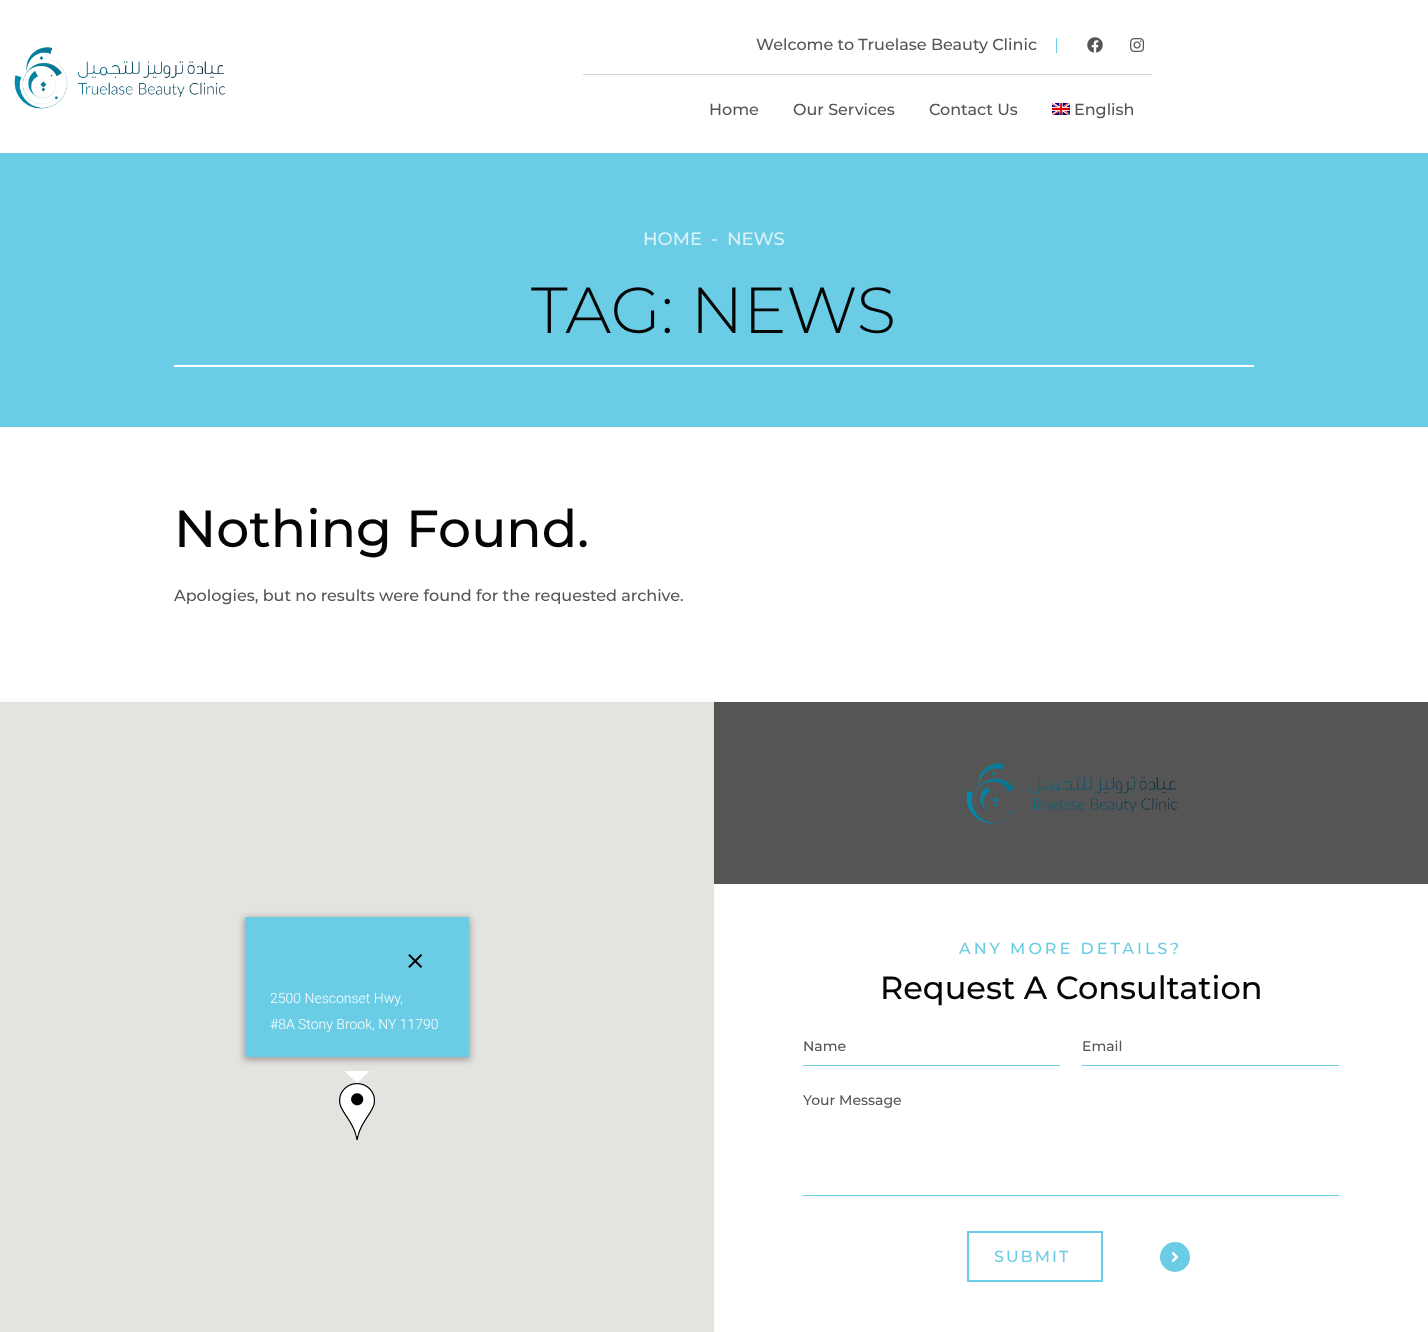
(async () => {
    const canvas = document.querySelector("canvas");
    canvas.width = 1428;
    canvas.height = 1332;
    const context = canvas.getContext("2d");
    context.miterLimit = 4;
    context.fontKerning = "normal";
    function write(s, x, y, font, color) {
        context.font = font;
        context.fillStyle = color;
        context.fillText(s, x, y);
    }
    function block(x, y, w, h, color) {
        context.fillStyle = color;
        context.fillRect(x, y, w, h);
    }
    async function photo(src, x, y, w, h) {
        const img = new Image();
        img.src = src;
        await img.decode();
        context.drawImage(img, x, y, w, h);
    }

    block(0, 0, 1428, 1332, "rgb(255, 255, 255)");
    await photo("media/1.png", 14, 47, 212, 62);
    write("Welcome to Truelase Beauty Clinic", 756, 50, "500 16px Montserrat", "rgb(85, 85, 85)");
    block(1056, 38, 1, 15, "rgb(107, 205, 229)");
    await photo("media/2.png", 1087, 37, 16, 16);
    await photo("media/3.png", 1130, 38, 15, 14);
    block(583, 74, 569, 1, "rgb(213, 213, 213)");
    write("Home", 709, 115, "500 16px Montserrat", "rgb(85, 85, 85)");
    write("Our Services", 793, 115, "500 16px Montserrat", "rgb(85, 85, 85)");
    write("Contact Us", 929, 115, "500 16px Montserrat", "rgb(85, 85, 85)");
    await photo("media/4.png", 1052, 103, 18, 12);
    write("English", 1074, 115, "500 16px Montserrat", "rgb(85, 85, 85)");
    block(0, 153, 1428, 274, "rgb(107, 205, 229)");
    write("HOME", 643, 245, "500 18px Montserrat", "rgb(218, 243, 249)");
    block(712, 239, 5, 2, "rgb(181, 230, 242)");
    write("NEWS", 727, 245, "500 18px Montserrat", "rgb(218, 243, 249)");
    block(174, 365, 1080, 2, "rgb(255, 255, 255)");
    write("TAG: NEWS", 531, 333, "300 65px Montserrat", "rgb(5, 5, 5)");
    write("Nothing Found.", 174, 547, "500 52px Montserrat", "rgb(5, 5, 5)");
    write("Apologies, but no results were found for the requested archive.", 174, 601, "500 16px Montserrat", "rgb(85, 85, 85)");
    block(714, 702, 714, 182, "rgb(85, 85, 85)");
    block(0, 702, 714, 630, "rgb(229, 227, 223)");
    context.fillStyle = "rgba(0, 0, 0, 0.3)";
    context.filter = "blur(3.5px)";
    context.beginPath();
    context.rect(244, 918, 226, 142);
    context.fill();
    context.filter = "none";
    block(245, 917, 224, 140, "rgb(107, 205, 229)");
    await photo("media/5.png", 408, 954, 15, 14);
    write("2500 Nesconset Hwy,", 270, 1003, "300 14px Roboto", "rgb(255, 255, 255)");
    write("#8A Stony Brook, NY 11790", 270, 1029, "300 14px Roboto", "rgb(255, 255, 255)");
    context.beginPath();
    context.moveTo(345, 1071);
    context.lineTo(345, 1071.5);
    context.lineTo(357, 1083);
    context.lineTo(369.5, 1071);
    context.closePath();
    context.fill();
    await photo("media/6.png", 339, 1083, 36, 57);
    await photo("media/7.png", 966, 763, 211, 61);
    context.letterSpacing = "3px";
    write("ANY MORE DETAILS?", 959, 954, "500 16px Montserrat", "rgb(107, 205, 229)");
    context.letterSpacing = "0px";
    write("Request A Consultation", 880, 999, "500 32px Montserrat", "rgb(5, 5, 5)");
    block(803, 1065, 257, 1, "rgb(107, 205, 229)");
    write("Name", 803, 1051, "500 14px Montserrat", "rgb(85, 85, 85)");
    block(1082, 1065, 257, 1, "rgb(107, 205, 229)");
    write("Email", 1082, 1051, "500 14px Montserrat", "rgb(85, 85, 85)");
    block(803, 1195, 536, 1, "rgb(107, 205, 229)");
    write("Your Message", 803, 1105, "500 14px Montserrat", "rgb(85, 85, 85)");
    context.strokeStyle = "rgb(107, 205, 229)";
    context.lineWidth = 2;
    context.strokeRect(968, 1232, 134, 49);
    context.letterSpacing = "2px";
    write("SUBMIT", 994, 1262, "500 16px Montserrat", "rgb(107, 205, 229)");
    context.beginPath();
    context.arc(1175, 1257, 15, 0, Math.PI * 2);
    context.fill();
    await photo("media/8.png", 1171, 1252, 8, 10);
})();
